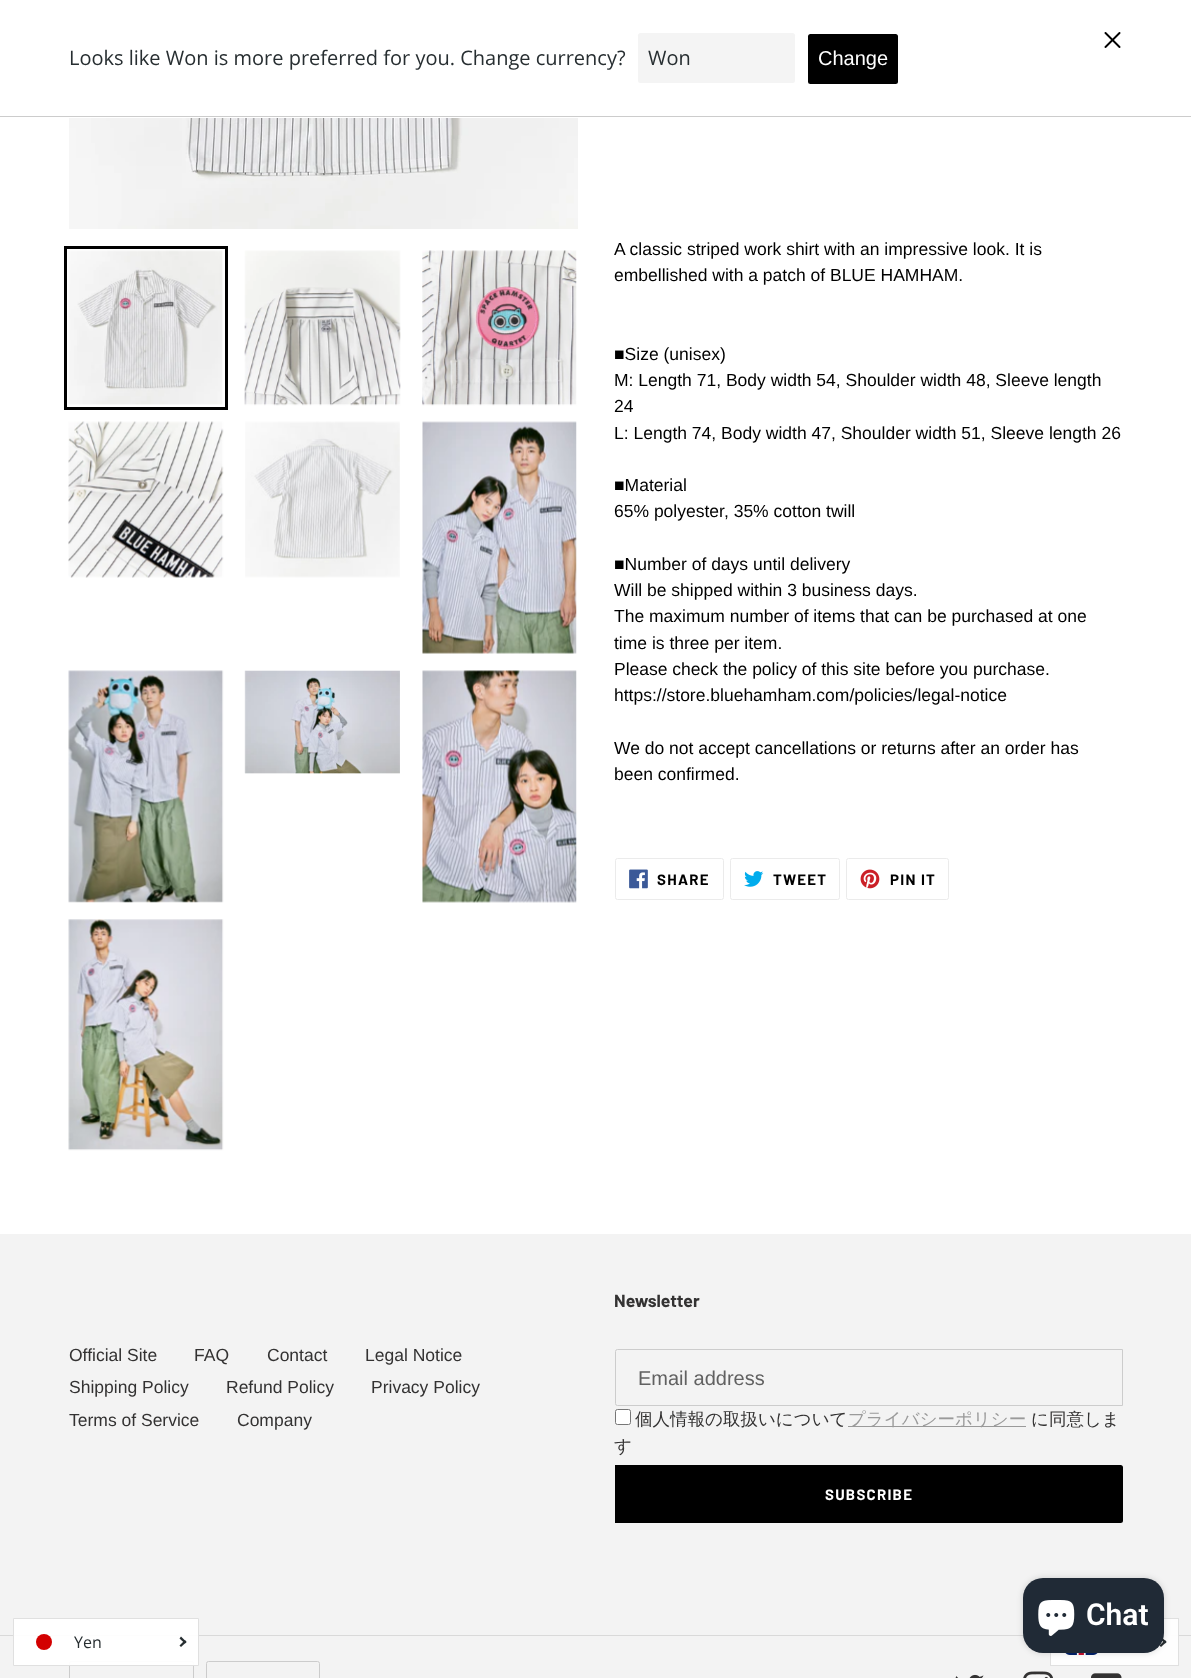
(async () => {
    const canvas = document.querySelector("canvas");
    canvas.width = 1191;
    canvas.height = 1678;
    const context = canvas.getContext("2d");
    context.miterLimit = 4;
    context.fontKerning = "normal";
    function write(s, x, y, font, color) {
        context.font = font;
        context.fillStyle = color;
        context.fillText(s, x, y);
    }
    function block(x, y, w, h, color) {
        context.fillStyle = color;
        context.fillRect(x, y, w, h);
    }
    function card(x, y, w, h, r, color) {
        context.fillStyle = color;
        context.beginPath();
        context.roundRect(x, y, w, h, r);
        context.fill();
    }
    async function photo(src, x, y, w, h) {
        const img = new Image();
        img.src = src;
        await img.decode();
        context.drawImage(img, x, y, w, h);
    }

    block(0, 0, 1191, 1678, "rgb(255, 255, 255)");
    block(0, 116, 1191, 1, "rgb(204, 204, 204)");
    await photo("media/1.png", 1104, 32, 17, 16);
    write("Looks like Won is more preferred for you. Change currency?", 69, 65, "20px Open Sans", "rgb(39, 46, 49)");
    card(638, 33, 157, 50, 2.5, "rgb(244, 244, 244)");
    write("Won", 648, 65, "20px Open Sans", "rgb(39, 46, 49)");
    card(808, 34, 90, 50, 2.5, "rgb(0, 0, 0)");
    write("Change", 818, 65, "20px Liberation Sans", "rgb(255, 255, 255)");
    await photo("media/2.png", 69, 118, 509, 111);
    context.strokeStyle = "rgb(0, 0, 0)";
    context.lineWidth = 3;
    context.strokeRect(65.5, 247.5, 161, 161);
    await photo("media/3.png", 68, 250, 155, 155);
    await photo("media/4.png", 244, 250, 157, 156);
    await photo("media/5.png", 422, 250, 155, 156);
    await photo("media/6.png", 68, 421, 156, 157);
    await photo("media/7.png", 245, 421, 155, 157);
    await photo("media/8.png", 422, 421, 155, 233);
    await photo("media/9.png", 68, 670, 156, 233);
    await photo("media/10.png", 244, 670, 156, 104);
    await photo("media/11.png", 422, 670, 155, 233);
    await photo("media/12.png", 68, 919, 156, 232);
    write("A classic striped work shirt with an impressive look. It is", 614, 255, "17.5px Liberation Sans", "rgb(0, 0, 0)");
    write("embellished with a patch of BLUE HAMHAM.", 614, 281, "17.5px Liberation Sans", "rgb(0, 0, 0)");
    write("■Size (unisex)", 614, 360, "17.5px Liberation Sans", "rgb(0, 0, 0)");
    write("M: Length 71, Body width 54, Shoulder width 48, Sleeve length", 614, 386, "17.5px Liberation Sans", "rgb(0, 0, 0)");
    write("24", 614, 412, "17.5px Liberation Sans", "rgb(0, 0, 0)");
    write("L: Length 74, Body width 47, Shoulder width 51, Sleeve length 26", 614, 439, "17.5px Liberation Sans", "rgb(0, 0, 0)");
    write("■Material", 614, 491, "17.5px Liberation Sans", "rgb(0, 0, 0)");
    write("65% polyester, 35% cotton twill", 614, 517, "17.5px Liberation Sans", "rgb(0, 0, 0)");
    write("■Number of days until delivery", 614, 570, "17.5px Liberation Sans", "rgb(0, 0, 0)");
    write("Will be shipped within 3 business days.", 614, 596, "17.5px Liberation Sans", "rgb(0, 0, 0)");
    write("The maximum number of items that can be purchased at one", 614, 622, "17.5px Liberation Sans", "rgb(0, 0, 0)");
    write("time is three per item.", 614, 649, "17.5px Liberation Sans", "rgb(0, 0, 0)");
    write("Please check the policy of this site before you purchase.", 614, 675, "17.5px Liberation Sans", "rgb(0, 0, 0)");
    write("https://store.bluehamham.com/policies/legal-notice", 614, 701, "17.5px Liberation Sans", "rgb(0, 0, 0)");
    write("We do not accept cancellations or returns after an order has", 614, 754, "17.5px Liberation Sans", "rgb(0, 0, 0)");
    write("been confirmed.", 614, 780, "17.5px Liberation Sans", "rgb(0, 0, 0)");
    context.beginPath();
    context.roundRect(615.5, 858.5, 108, 41, 2);
    context.strokeStyle = "rgb(235, 235, 235)";
    context.lineWidth = 1;
    context.stroke();
    await photo("media/13.png", 629, 869, 19, 20);
    context.letterSpacing = "1.25px";
    write("SHARE", 657, 885, "bold 15px Barlow", "rgb(0, 0, 0)");
    context.beginPath();
    context.roundRect(730.5, 858.5, 109, 41, 2);
    context.stroke();
    await photo("media/14.png", 744, 871, 20, 16);
    write("TWEET", 773, 885, "bold 15px Barlow", "rgb(0, 0, 0)");
    context.beginPath();
    context.roundRect(846.5, 858.5, 102, 41, 2);
    context.stroke();
    await photo("media/15.png", 860, 869, 20, 20);
    write("PIN IT", 890, 885, "bold 15px Barlow", "rgb(0, 0, 0)");
    block(0, 1234, 1191, 444, "rgb(243, 243, 243)");
    block(1051, 1619, 127, 46, "rgb(254, 254, 254)");
    context.letterSpacing = "0px";
    write("Official Site", 69, 1361, "17.5px Liberation Sans", "rgb(51, 50, 50)");
    write("FAQ", 194, 1361, "17.5px Liberation Sans", "rgb(51, 50, 50)");
    write("Contact", 267, 1361, "17.5px Liberation Sans", "rgb(51, 50, 50)");
    write("Legal Notice", 365, 1361, "17.5px Liberation Sans", "rgb(51, 50, 50)");
    write("Shipping Policy", 69, 1393, "17.5px Liberation Sans", "rgb(51, 50, 50)");
    write("Refund Policy", 226, 1393, "17.5px Liberation Sans", "rgb(51, 50, 50)");
    write("Privacy Policy", 371, 1393, "17.5px Liberation Sans", "rgb(51, 50, 50)");
    write("Terms of Service", 69, 1426, "17.5px Liberation Sans", "rgb(51, 50, 50)");
    write("Company", 237, 1426, "17.5px Liberation Sans", "rgb(51, 50, 50)");
    write("Newsletter", 614, 1307, "bold 17.5px Barlow", "rgb(51, 50, 50)");
    context.beginPath();
    context.roundRect(615.5, 1349.5, 507, 56, [2, 0, 0, 2]);
    context.strokeStyle = "rgb(204, 204, 204)";
    context.stroke();
    write("Email address", 638, 1385, "20px Liberation Sans", "rgb(97, 97, 97)");
    context.fillStyle = "rgb(255, 255, 255)";
    context.beginPath();
    context.roundRect(615.5, 1409.5, 15, 15, 2);
    context.fill();
    context.strokeStyle = "rgb(118, 118, 118)";
    context.stroke();
    write("個人情報の取扱いについて", 635, 1425, "500 17.5px WenQuanYi Zen Hei", "rgb(51, 50, 50)");
    block(848, 1426, 178, 1, "rgb(154, 154, 154)");
    write("プライバシーポリシー", 848, 1425, "500 17.5px WenQuanYi Zen Hei", "rgb(154, 154, 154)");
    write("に同意しま", 1031, 1425, "500 17.5px WenQuanYi Zen Hei", "rgb(51, 50, 50)");
    write("す", 614, 1452, "500 17.5px WenQuanYi Zen Hei", "rgb(51, 50, 50)");
    context.fillStyle = "rgb(0, 0, 0)";
    context.beginPath();
    context.roundRect(615, 1465, 508, 58, [0, 2.5, 2.5, 0]);
    context.fill();
    context.letterSpacing = "1.25px";
    write("SUBSCRIBE", 825, 1500, "bold 15px Barlow", "rgb(255, 255, 255)");
    block(0, 1635, 1191, 1, "rgb(217, 217, 217)");
    block(1163, 1635, 16, 1, "rgb(253, 253, 253)");
    context.beginPath();
    context.roundRect(69.5, 1661.5, 124, 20, 2);
    context.strokeStyle = "rgb(204, 204, 204)";
    context.stroke();
    context.beginPath();
    context.roundRect(206.5, 1661.5, 113, 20, 2);
    context.stroke();
    await photo("media/16.png", 955, 1674, 30, 4);
    await photo("media/17.png", 1023, 1671, 30, 7);
    await photo("media/18.png", 1091, 1673, 31, 5);
    context.strokeStyle = "rgb(224, 224, 224)";
    context.strokeRect(1050.5, 1618.5, 128, 47);
    context.fillStyle = "rgb(39, 46, 49)";
    context.beginPath();
    context.moveTo(1161, 1636.5);
    context.lineTo(1166.5, 1642);
    context.lineTo(1165, 1643.5);
    context.lineTo(1159.5, 1638.5);
    context.closePath();
    context.fill();
    context.beginPath();
    context.moveTo(1165, 1640);
    context.lineTo(1166.5, 1642);
    context.lineTo(1161, 1647);
    context.lineTo(1159.5, 1645.5);
    context.closePath();
    context.fill();
    await photo("media/20.png", 1065, 1653, 33, 2);
    context.fillStyle = "rgba(0, 0, 0, 0.15)";
    context.filter = "blur(3px)";
    context.beginPath();
    context.roundRect(1023, 1578, 141, 75, 20);
    context.fill();
    context.filter = "none";
    card(1023, 1578, 141, 75, 20, "rgb(32, 42, 54)");
    await photo("media/19.png", 1038, 1600, 37, 36);
    context.letterSpacing = "0px";
    write("Chat", 1086, 1625, "600 30px Roboto", "rgb(255, 255, 255)");
    context.fillStyle = "rgba(255, 255, 255, 0.95)";
    context.beginPath();
    context.rect(13.5, 1618.5, 185, 47);
    context.fill();
    context.stroke();
    context.fillStyle = "rgb(211, 0, 0)";
    context.beginPath();
    context.arc(44, 1642, 8, 0, Math.PI * 2);
    context.fill();
    write("Yen", 74, 1648, "16px Open Sans", "rgb(39, 46, 49)");
    context.beginPath();
    context.moveTo(181, 1636.5);
    context.lineTo(186.5, 1642);
    context.lineTo(185, 1643.5);
    context.lineTo(179.5, 1638.5);
    context.closePath();
    context.fill();
    context.beginPath();
    context.moveTo(185, 1640);
    context.lineTo(186.5, 1642);
    context.lineTo(181, 1647);
    context.lineTo(179.5, 1645.5);
    context.closePath();
    context.fill();
})();
